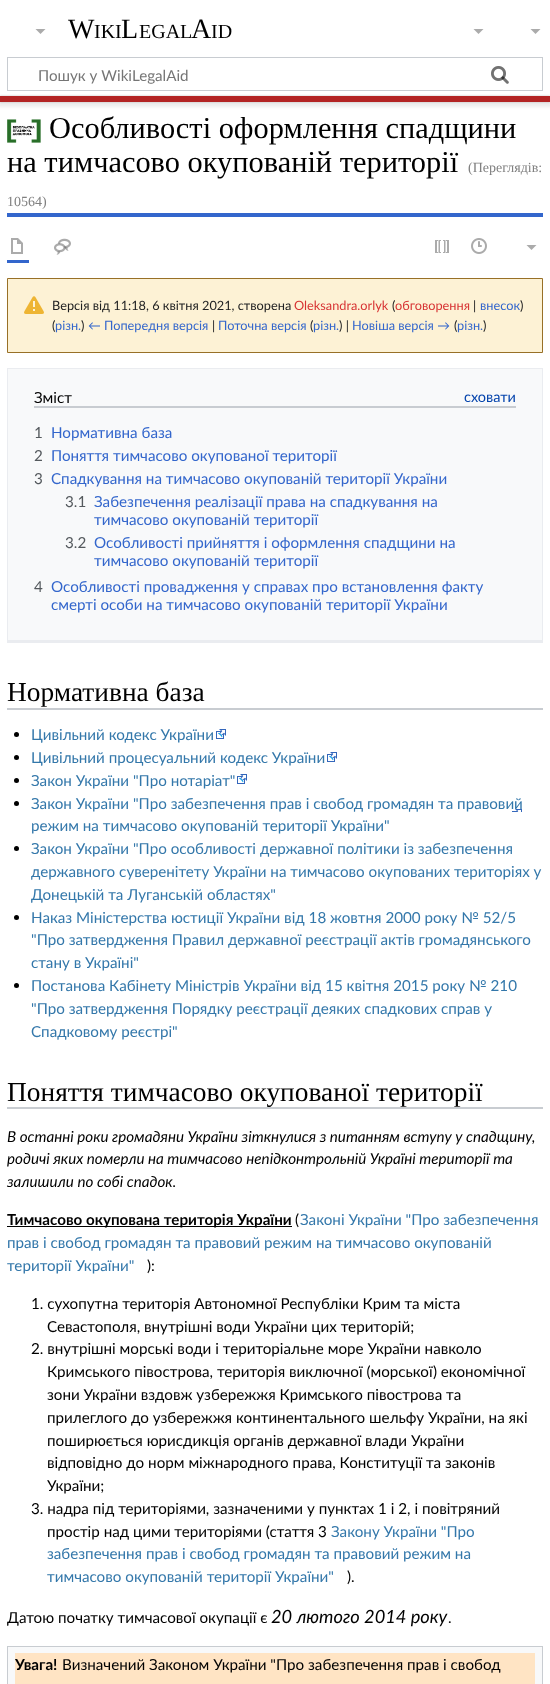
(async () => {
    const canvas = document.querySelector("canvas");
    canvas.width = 550;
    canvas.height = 1684;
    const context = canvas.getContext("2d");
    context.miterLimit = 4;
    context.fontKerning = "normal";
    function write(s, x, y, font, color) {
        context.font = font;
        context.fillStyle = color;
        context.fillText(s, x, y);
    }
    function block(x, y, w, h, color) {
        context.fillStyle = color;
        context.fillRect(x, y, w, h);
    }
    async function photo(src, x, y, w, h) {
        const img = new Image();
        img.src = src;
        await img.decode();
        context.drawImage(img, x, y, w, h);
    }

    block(0, 0, 550, 1684, "rgb(255, 255, 255)");
    write("W", 68, 38, "28px Liberation Serif", "rgb(0, 0, 0)");
    write("IKI", 94, 38, "20px Liberation Serif", "rgb(0, 0, 0)");
    write("L", 121, 38, "28px Liberation Serif", "rgb(0, 0, 0)");
    write("EGAL", 139, 38, "20px Liberation Serif", "rgb(0, 0, 0)");
    write("A", 191, 38, "28px Liberation Serif", "rgb(0, 0, 0)");
    write("ID", 211, 38, "20px Liberation Serif", "rgb(0, 0, 0)");
    context.fillStyle = "rgb(171, 171, 171)";
    context.beginPath();
    context.moveTo(540.5, 29);
    context.lineTo(535.5, 34);
    context.lineTo(530.5, 29);
    context.closePath();
    context.fill();
    context.strokeStyle = "rgb(200, 204, 209)";
    context.strokeRect(7.5, 57.5, 535, 33);
    await photo("media/1.png", 491, 66, 18, 18);
    write("Пошук у WikiLegalAid", 38, 81, "15.2px Lato", "rgb(117, 117, 117)");
    await photo("media/2.png", 491, 66, 18, 18);
    context.fillStyle = "rgba(0, 0, 0, 0.2)";
    context.filter = "blur(1px)";
    context.beginPath();
    context.rect(0, 96, 550, 6);
    context.fill();
    context.filter = "none";
    context.fillStyle = "rgba(0, 0, 0, 0.07)";
    context.filter = "blur(1.5px)";
    context.beginPath();
    context.rect(-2, 97, 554, 10);
    context.fill();
    context.filter = "none";
    block(0, 96, 550, 6, "rgb(179, 36, 36)");
    context.fillStyle = "rgb(171, 171, 171)";
    context.beginPath();
    context.moveTo(45.5, 29);
    context.lineTo(40.5, 34);
    context.lineTo(35.5, 29);
    context.closePath();
    context.fill();
    context.beginPath();
    context.moveTo(483.5, 29);
    context.lineTo(478.5, 34);
    context.lineTo(473.5, 29);
    context.closePath();
    context.fill();
    block(7, 213, 536, 4, "rgb(51, 102, 204)");
    await photo("media/3.png", 7, 119, 34, 24);
    write("Особливості оформлення спадщини", 49, 138, "30.4px Liberation Serif", "rgb(0, 0, 0)");
    write("на тимчасово окупованій території", 7, 172, "30.4px Liberation Serif", "rgb(0, 0, 0)");
    write("(Переглядів:", 468, 172, "14px Liberation Serif", "rgb(128, 128, 128)");
    write("10564)", 7, 206, "14px Liberation Serif", "rgb(128, 128, 128)");
    block(7, 260, 22, 3, "rgb(51, 102, 204)");
    await photo("media/4.png", 11, 238, 12, 16);
    await photo("media/5.png", 54, 238, 17, 17);
    await photo("media/6.png", 435, 240, 14, 13);
    await photo("media/7.png", 471, 238, 16, 16);
    context.fillStyle = "rgb(171, 171, 171)";
    context.beginPath();
    context.moveTo(536.5, 245);
    context.lineTo(531.5, 250);
    context.lineTo(526.5, 245);
    context.closePath();
    context.fill();
    context.fillStyle = "rgb(253, 242, 213)";
    context.beginPath();
    context.rect(7.5, 278.5, 535, 74);
    context.fill();
    context.strokeStyle = "rgb(152, 112, 39)";
    context.stroke();
    await photo("media/8.png", 24, 296, 20, 18);
    write("Версія від 11:18, 6 квітня 2021, створена", 52, 310, "12.75px Lato", "rgb(32, 33, 34)");
    write("Oleksandra.orlyk", 294, 310, "12.75px Lato", "rgb(215, 51, 51)");
    write("(", 392, 310, "12.75px Lato", "rgb(32, 33, 34)");
    write("обговорення", 395, 310, "12.75px Lato", "rgb(215, 51, 51)");
    write("|", 473, 310, "12.75px Lato", "rgb(32, 33, 34)");
    write("внесок", 480, 310, "12.75px Lato", "rgb(51, 102, 204)");
    write(")", 520, 310, "12.75px Lato", "rgb(32, 33, 34)");
    write("(", 52, 330, "12.75px Lato", "rgb(32, 33, 34)");
    write("різн.", 55, 330, "12.75px Lato", "rgb(51, 102, 204)");
    write(")", 81, 330, "12.75px Lato", "rgb(32, 33, 34)");
    write("← Попередня версія", 88, 330, "12.75px Lato", "rgb(51, 102, 204)");
    write("|", 212, 330, "12.75px Lato", "rgb(32, 33, 34)");
    write("Поточна версія", 218, 330, "12.75px Lato", "rgb(51, 102, 204)");
    write("(", 310, 330, "12.75px Lato", "rgb(32, 33, 34)");
    write("різн.", 313, 330, "12.75px Lato", "rgb(51, 102, 204)");
    write(") |", 339, 330, "12.75px Lato", "rgb(32, 33, 34)");
    write("Новіша версія →", 352, 330, "12.75px Lato", "rgb(51, 102, 204)");
    write("(", 454, 330, "12.75px Lato", "rgb(32, 33, 34)");
    write("різн.", 457, 330, "12.75px Lato", "rgb(51, 102, 204)");
    write(")", 483, 330, "12.75px Lato", "rgb(32, 33, 34)");
    block(8, 369, 534, 271, "rgb(248, 249, 250)");
    block(7, 368, 536, 1, "rgb(234, 236, 240)");
    block(542, 368, 1, 275, "rgb(234, 236, 240)");
    block(7, 640, 536, 3, "rgb(234, 236, 240)");
    block(7, 368, 1, 275, "rgb(234, 236, 240)");
    block(34, 406, 482, 2, "rgb(200, 204, 209)");
    write("Зміст", 34, 403, "15.2px Lato", "rgb(0, 0, 0)");
    write("сховати", 464, 402, "14.5px Lato", "rgb(6, 69, 173)");
    write("1", 34, 438, "15.2px Lato", "rgb(84, 89, 93)");
    write("Нормативна база", 51, 438, "15.2px Lato", "rgb(51, 102, 204)");
    write("2", 34, 461, "15.2px Lato", "rgb(84, 89, 93)");
    write("Поняття тимчасово окупованої території", 51, 461, "15.2px Lato", "rgb(51, 102, 204)");
    write("3", 34, 484, "15.2px Lato", "rgb(84, 89, 93)");
    write("Спадкування на тимчасово окупованій території України", 51, 484, "15.2px Lato", "rgb(51, 102, 204)");
    write("3.1", 65, 507, "15.2px Lato", "rgb(84, 89, 93)");
    write("Забезпечення реалізації права на спадкування на", 94, 507, "15.2px Lato", "rgb(51, 102, 204)");
    write("тимчасово окупованій території", 94, 525, "15.2px Lato", "rgb(51, 102, 204)");
    write("3.2", 65, 548, "15.2px Lato", "rgb(84, 89, 93)");
    write("Особливості прийняття і оформлення спадщини на", 94, 548, "15.2px Lato", "rgb(51, 102, 204)");
    write("тимчасово окупованій території", 94, 566, "15.2px Lato", "rgb(51, 102, 204)");
    write("4", 34, 592, "15.2px Lato", "rgb(84, 89, 93)");
    write("Особливості провадження у справах про встановлення факту", 51, 592, "15.2px Lato", "rgb(51, 102, 204)");
    write("смерті особи на тимчасово окупованій території України", 51, 610, "15.2px Lato", "rgb(51, 102, 204)");
    block(7, 708, 536, 2, "rgb(200, 204, 209)");
    write("Нормативна база", 7, 701, "27.4px Liberation Serif", "rgb(0, 0, 0)");
    context.beginPath();
    context.arc(16.5, 734.5, 2.5, 0, Math.PI * 2);
    context.fill();
    write("Цивільний кодекс України", 31, 740, "15.2px Lato", "rgb(51, 119, 170)");
    await photo("media/9.png", 216, 729, 10, 10);
    context.fillStyle = "rgb(0, 0, 0)";
    context.beginPath();
    context.arc(16.5, 757.5, 2.5, 0, Math.PI * 2);
    context.fill();
    write("Цивільний процесуальний кодекс України", 31, 763, "15.2px Lato", "rgb(51, 119, 170)");
    await photo("media/9.png", 327, 752, 10, 10);
    context.fillStyle = "rgb(0, 0, 0)";
    context.beginPath();
    context.arc(16.5, 780.5, 2.5, 0, Math.PI * 2);
    context.fill();
    write("Закон України \"Про нотаріат\"", 31, 786, "15.2px Lato", "rgb(51, 119, 170)");
    await photo("media/9.png", 237, 774, 10, 10);
    context.fillStyle = "rgb(0, 0, 0)";
    context.beginPath();
    context.arc(16.5, 803.5, 2.5, 0, Math.PI * 2);
    context.fill();
    await photo("media/10.png", 512, 809, 10, 3);
    write("Закон України \"Про забезпечення прав і свобод громадян та правовий", 31, 809, "15.2px Lato", "rgb(51, 119, 170)");
    write("режим на тимчасово окупованій території України\"", 31, 831, "15.2px Lato", "rgb(51, 119, 170)");
    context.fillStyle = "rgb(0, 0, 0)";
    context.beginPath();
    context.arc(16.5, 848.5, 2.5, 0, Math.PI * 2);
    context.fill();
    write("Закон України \"Про особливості державної політики із забезпечення", 31, 854, "15.2px Lato", "rgb(51, 119, 170)");
    write("державного суверенітету України на тимчасово окупованих територіях у", 31, 877, "15.2px Lato", "rgb(51, 119, 170)");
    write("Донецькій та Луганській областях\"", 31, 900, "15.2px Lato", "rgb(51, 119, 170)");
    context.fillStyle = "rgb(0, 0, 0)";
    context.beginPath();
    context.arc(16.5, 917.5, 2.5, 0, Math.PI * 2);
    context.fill();
    write("Наказ Міністерства юстиції України від 18 жовтня 2000 року № 52/5", 31, 923, "15.2px Lato", "rgb(51, 119, 170)");
    write("\"Про затвердження Правил державної реєстрації актів громадянського", 31, 945, "15.2px Lato", "rgb(51, 119, 170)");
    write("стану в Україні\"", 31, 968, "15.2px Lato", "rgb(51, 119, 170)");
    context.fillStyle = "rgb(0, 0, 0)";
    context.beginPath();
    context.arc(16.5, 985.5, 2.5, 0, Math.PI * 2);
    context.fill();
    write("Постанова Кабінету Міністрів України від 15 квітня 2015 року № 210", 31, 991, "15.2px Lato", "rgb(51, 119, 170)");
    write("\"Про затвердження Порядку реєстрації деяких спадкових справ у", 31, 1014, "15.2px Lato", "rgb(51, 119, 170)");
    write("Спадковому реєстрі\"", 31, 1037, "15.2px Lato", "rgb(51, 119, 170)");
    block(7, 1107, 536, 2, "rgb(200, 204, 209)");
    write("Поняття тимчасово окупованої території", 7, 1101, "27.4px Liberation Serif", "rgb(0, 0, 0)");
    write("В останні роки громадяни України зіткнулися з питанням вступу у спадщину,", 7, 1142, "italic 15.2px Lato", "rgb(0, 0, 0)");
    write("родичі яких померли на тимчасово непідконтрольній Україні території та", 7, 1164, "italic 15.2px Lato", "rgb(0, 0, 0)");
    write("залишили по собі спадок.", 7, 1187, "italic 15.2px Lato", "rgb(0, 0, 0)");
    block(7, 1226, 285, 1, "rgb(0, 0, 0)");
    write("Тимчасово окупована територія України", 7, 1225, "bold 15.2px Lato", "rgb(0, 0, 0)");
    write("(", 295, 1225, "15.2px Lato", "rgb(0, 0, 0)");
    write("Законі України \"Про забезпечення", 300, 1225, "15.2px Lato", "rgb(51, 119, 170)");
    write("прав і свобод громадян та правовий режим на тимчасово окупованій", 7, 1248, "15.2px Lato", "rgb(51, 119, 170)");
    write("території України\"", 7, 1271, "15.2px Lato", "rgb(51, 119, 170)");
    write("):", 147, 1271, "15.2px Lato", "rgb(0, 0, 0)");
    write("1. сухопутна територія Автономної Республіки Крим та міста", 31, 1309, "15.2px Lato", "rgb(0, 0, 0)");
    write("Севастополя, внутрішні води України цих територій;", 47, 1332, "15.2px Lato", "rgb(0, 0, 0)");
    write("2. внутрішні морські води і територіальне море України навколо", 31, 1354, "15.2px Lato", "rgb(0, 0, 0)");
    write("Кримського півострова, територія виключної (морської) економічної", 47, 1377, "15.2px Lato", "rgb(0, 0, 0)");
    write("зони України вздовж узбережжя Кримського півострова та", 47, 1400, "15.2px Lato", "rgb(0, 0, 0)");
    write("прилеглого до узбережжя континентального шельфу України, на які", 47, 1423, "15.2px Lato", "rgb(0, 0, 0)");
    write("поширюється юрисдикція органів державної влади України", 47, 1446, "15.2px Lato", "rgb(0, 0, 0)");
    write("відповідно до норм міжнародного права, Конституції та законів", 47, 1468, "15.2px Lato", "rgb(0, 0, 0)");
    write("України;", 47, 1491, "15.2px Lato", "rgb(0, 0, 0)");
    write("3. надра під територіями, зазначеними у пунктах 1 і 2, і повітряний", 31, 1514, "15.2px Lato", "rgb(0, 0, 0)");
    write("простір над цими територіями (стаття 3", 47, 1537, "15.2px Lato", "rgb(0, 0, 0)");
    write("Закону України \"Про", 331, 1537, "15.2px Lato", "rgb(51, 119, 170)");
    write("забезпечення прав і свобод громадян та правовий режим на", 47, 1559, "15.2px Lato", "rgb(51, 119, 170)");
    write("тимчасово окупованій території України\"", 47, 1582, "15.2px Lato", "rgb(51, 119, 170)");
    write(").", 347, 1582, "15.2px Lato", "rgb(0, 0, 0)");
    write("Датою початку тимчасової окупації є", 7, 1623, "15.2px Lato", "rgb(0, 0, 0)");
    write("20 лютого 2014 року", 271, 1623, "italic 18.25px Lato", "rgb(0, 0, 0)");
    write(".", 448, 1623, "15.2px Lato", "rgb(0, 0, 0)");
    block(8, 1647, 534, 37, "rgb(248, 249, 250)");
    block(7, 1646, 536, 1, "rgb(200, 204, 209)");
    block(542, 1646, 1, 38, "rgb(200, 204, 209)");
    block(7, 1646, 1, 38, "rgb(200, 204, 209)");
    block(15, 1653, 520, 31, "rgb(255, 228, 196)");
    write("Увага!", 15, 1670, "bold 15.2px Lato", "rgb(0, 0, 0)");
    write("Визначений Законом України \"Про забезпечення прав і свобод", 62, 1670, "15.2px Lato", "rgb(0, 0, 0)");
})();
